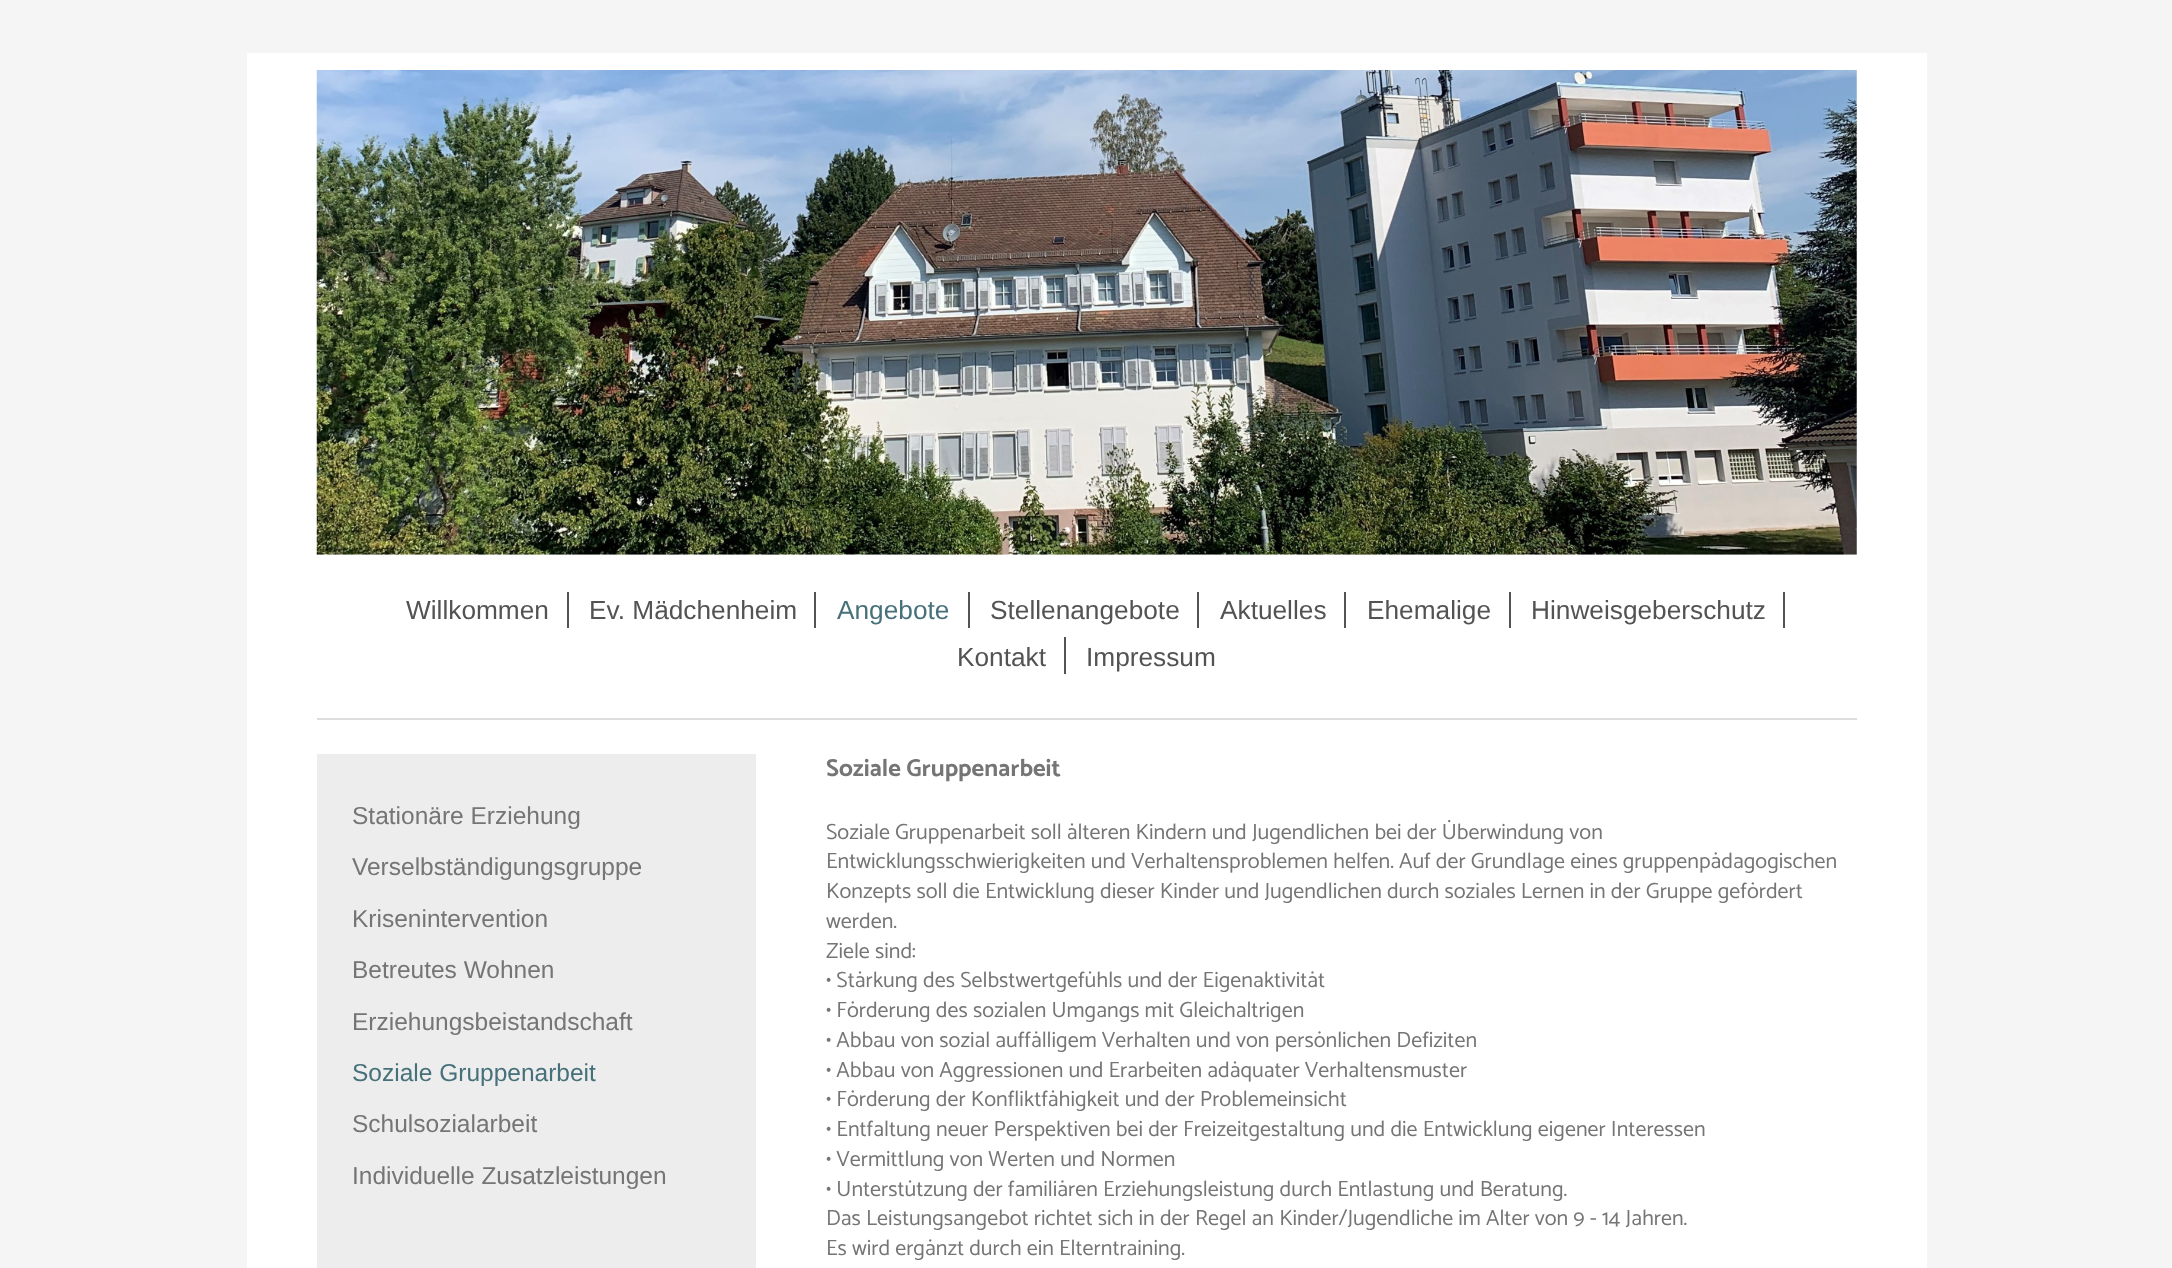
(async () => {
    const canvas = document.querySelector("canvas");
    canvas.width = 2172;
    canvas.height = 1268;
    const context = canvas.getContext("2d");
    context.miterLimit = 4;
    context.fontKerning = "normal";
    function write(s, x, y, font, color) {
        context.font = font;
        context.fillStyle = color;
        context.fillText(s, x, y);
    }
    function block(x, y, w, h, color) {
        context.fillStyle = color;
        context.fillRect(x, y, w, h);
    }
    async function photo(src, x, y, w, h) {
        const img = new Image();
        img.src = src;
        await img.decode();
        context.drawImage(img, x, y, w, h);
    }

    block(0, 0, 2172, 1268, "rgb(245, 245, 245)");
    block(247, 53, 1680, 1215, "rgb(255, 255, 255)");
    await photo("media/1.png", 316, 70, 1541, 485);
    block(317, 718, 1540, 2, "rgb(221, 221, 221)");
    block(567, 592, 2, 36, "rgb(83, 83, 83)");
    write("Willkommen", 406, 619, "26.25px Liberation Sans", "rgb(83, 83, 83)");
    block(814, 592, 2, 36, "rgb(83, 83, 83)");
    write("Ev. Mädchenheim", 589, 619, "26.25px Liberation Sans", "rgb(83, 83, 83)");
    block(968, 592, 2, 36, "rgb(83, 83, 83)");
    write("Angebote", 837, 619, "26.25px Liberation Sans", "rgb(71, 113, 122)");
    block(1197, 592, 2, 36, "rgb(83, 83, 83)");
    write("Stellenangebote", 990, 619, "26.25px Liberation Sans", "rgb(83, 83, 83)");
    block(1344, 592, 2, 36, "rgb(83, 83, 83)");
    write("Aktuelles", 1220, 619, "26.25px Liberation Sans", "rgb(83, 83, 83)");
    block(1509, 592, 2, 36, "rgb(83, 83, 83)");
    write("Ehemalige", 1367, 619, "26.25px Liberation Sans", "rgb(83, 83, 83)");
    block(1783, 592, 2, 36, "rgb(83, 83, 83)");
    write("Hinweisgeberschutz", 1531, 619, "26.25px Liberation Sans", "rgb(83, 83, 83)");
    block(1064, 637, 2, 37, "rgb(83, 83, 83)");
    write("Kontakt", 957, 666, "26.25px Liberation Sans", "rgb(83, 83, 83)");
    write("Impressum", 1086, 666, "26.25px Liberation Sans", "rgb(83, 83, 83)");
    block(317, 754, 439, 514, "rgb(237, 237, 237)");
    write("Stationäre Erziehung", 352, 824, "24.5px Liberation Sans", "rgb(117, 117, 117)");
    write("Verselbständigungsgruppe", 352, 875, "24.5px Liberation Sans", "rgb(117, 117, 117)");
    write("Krisenintervention", 352, 927, "24.5px Liberation Sans", "rgb(117, 117, 117)");
    write("Betreutes Wohnen", 352, 978, "24.5px Liberation Sans", "rgb(117, 117, 117)");
    write("Erziehungsbeistandschaft", 352, 1030, "24.5px Liberation Sans", "rgb(117, 117, 117)");
    write("Soziale Gruppenarbeit", 352, 1081, "24.5px Liberation Sans", "rgb(71, 113, 122)");
    write("Schulsozialarbeit", 352, 1132, "24.5px Liberation Sans", "rgb(117, 117, 117)");
    write("Individuelle Zusatzleistungen", 352, 1184, "24.5px Liberation Sans", "rgb(117, 117, 117)");
    write("Soziale Gruppenarbeit", 826, 776, "bold 24.5px Catamaran", "rgb(117, 117, 117)");
    write("Soziale Gruppenarbeit soll älteren Kindern und Jugendlichen bei der Überwindung von", 826, 839, "22.05px Catamaran", "rgb(117, 117, 117)");
    write("Entwicklungsschwierigkeiten und Verhaltensproblemen helfen. Auf der Grundlage eines gruppenpädagogischen", 826, 868, "22.05px Catamaran", "rgb(117, 117, 117)");
    write("Konzepts soll die Entwicklung dieser Kinder und Jugendlichen durch soziales Lernen in der Gruppe gefördert", 826, 898, "22.05px Catamaran", "rgb(117, 117, 117)");
    write("werden.", 826, 928, "22.05px Catamaran", "rgb(117, 117, 117)");
    write("Ziele sind:", 826, 958, "22.05px Catamaran", "rgb(117, 117, 117)");
    write("• Stärkung des Selbstwertgefühls und der Eigenaktivität", 826, 987, "22.05px Catamaran", "rgb(117, 117, 117)");
    write("• Förderung des sozialen Umgangs mit Gleichaltrigen", 826, 1017, "22.05px Catamaran", "rgb(117, 117, 117)");
    write("• Abbau von sozial auffälligem Verhalten und von persönlichen Defiziten", 826, 1047, "22.05px Catamaran", "rgb(117, 117, 117)");
    write("• Abbau von Aggressionen und Erarbeiten adäquater Verhaltensmuster", 826, 1077, "22.05px Catamaran", "rgb(117, 117, 117)");
    write("• Förderung der Konfliktfähigkeit und der Problemeinsicht", 826, 1106, "22.05px Catamaran", "rgb(117, 117, 117)");
    write("• Entfaltung neuer Perspektiven bei der Freizeitgestaltung und die Entwicklung eigener Interessen", 826, 1136, "22.05px Catamaran", "rgb(117, 117, 117)");
    write("• Vermittlung von Werten und Normen", 826, 1166, "22.05px Catamaran", "rgb(117, 117, 117)");
    write("• Unterstützung der familiären Erziehungsleistung durch Entlastung und Beratung.", 826, 1196, "22.05px Catamaran", "rgb(117, 117, 117)");
    write("Das Leistungsangebot richtet sich in der Regel an Kinder/Jugendliche im Alter von 9 - 14 Jahren.", 826, 1225, "22.05px Catamaran", "rgb(117, 117, 117)");
    write("Es wird ergänzt durch ein Elterntraining.", 826, 1255, "22.05px Catamaran", "rgb(117, 117, 117)");
})();
